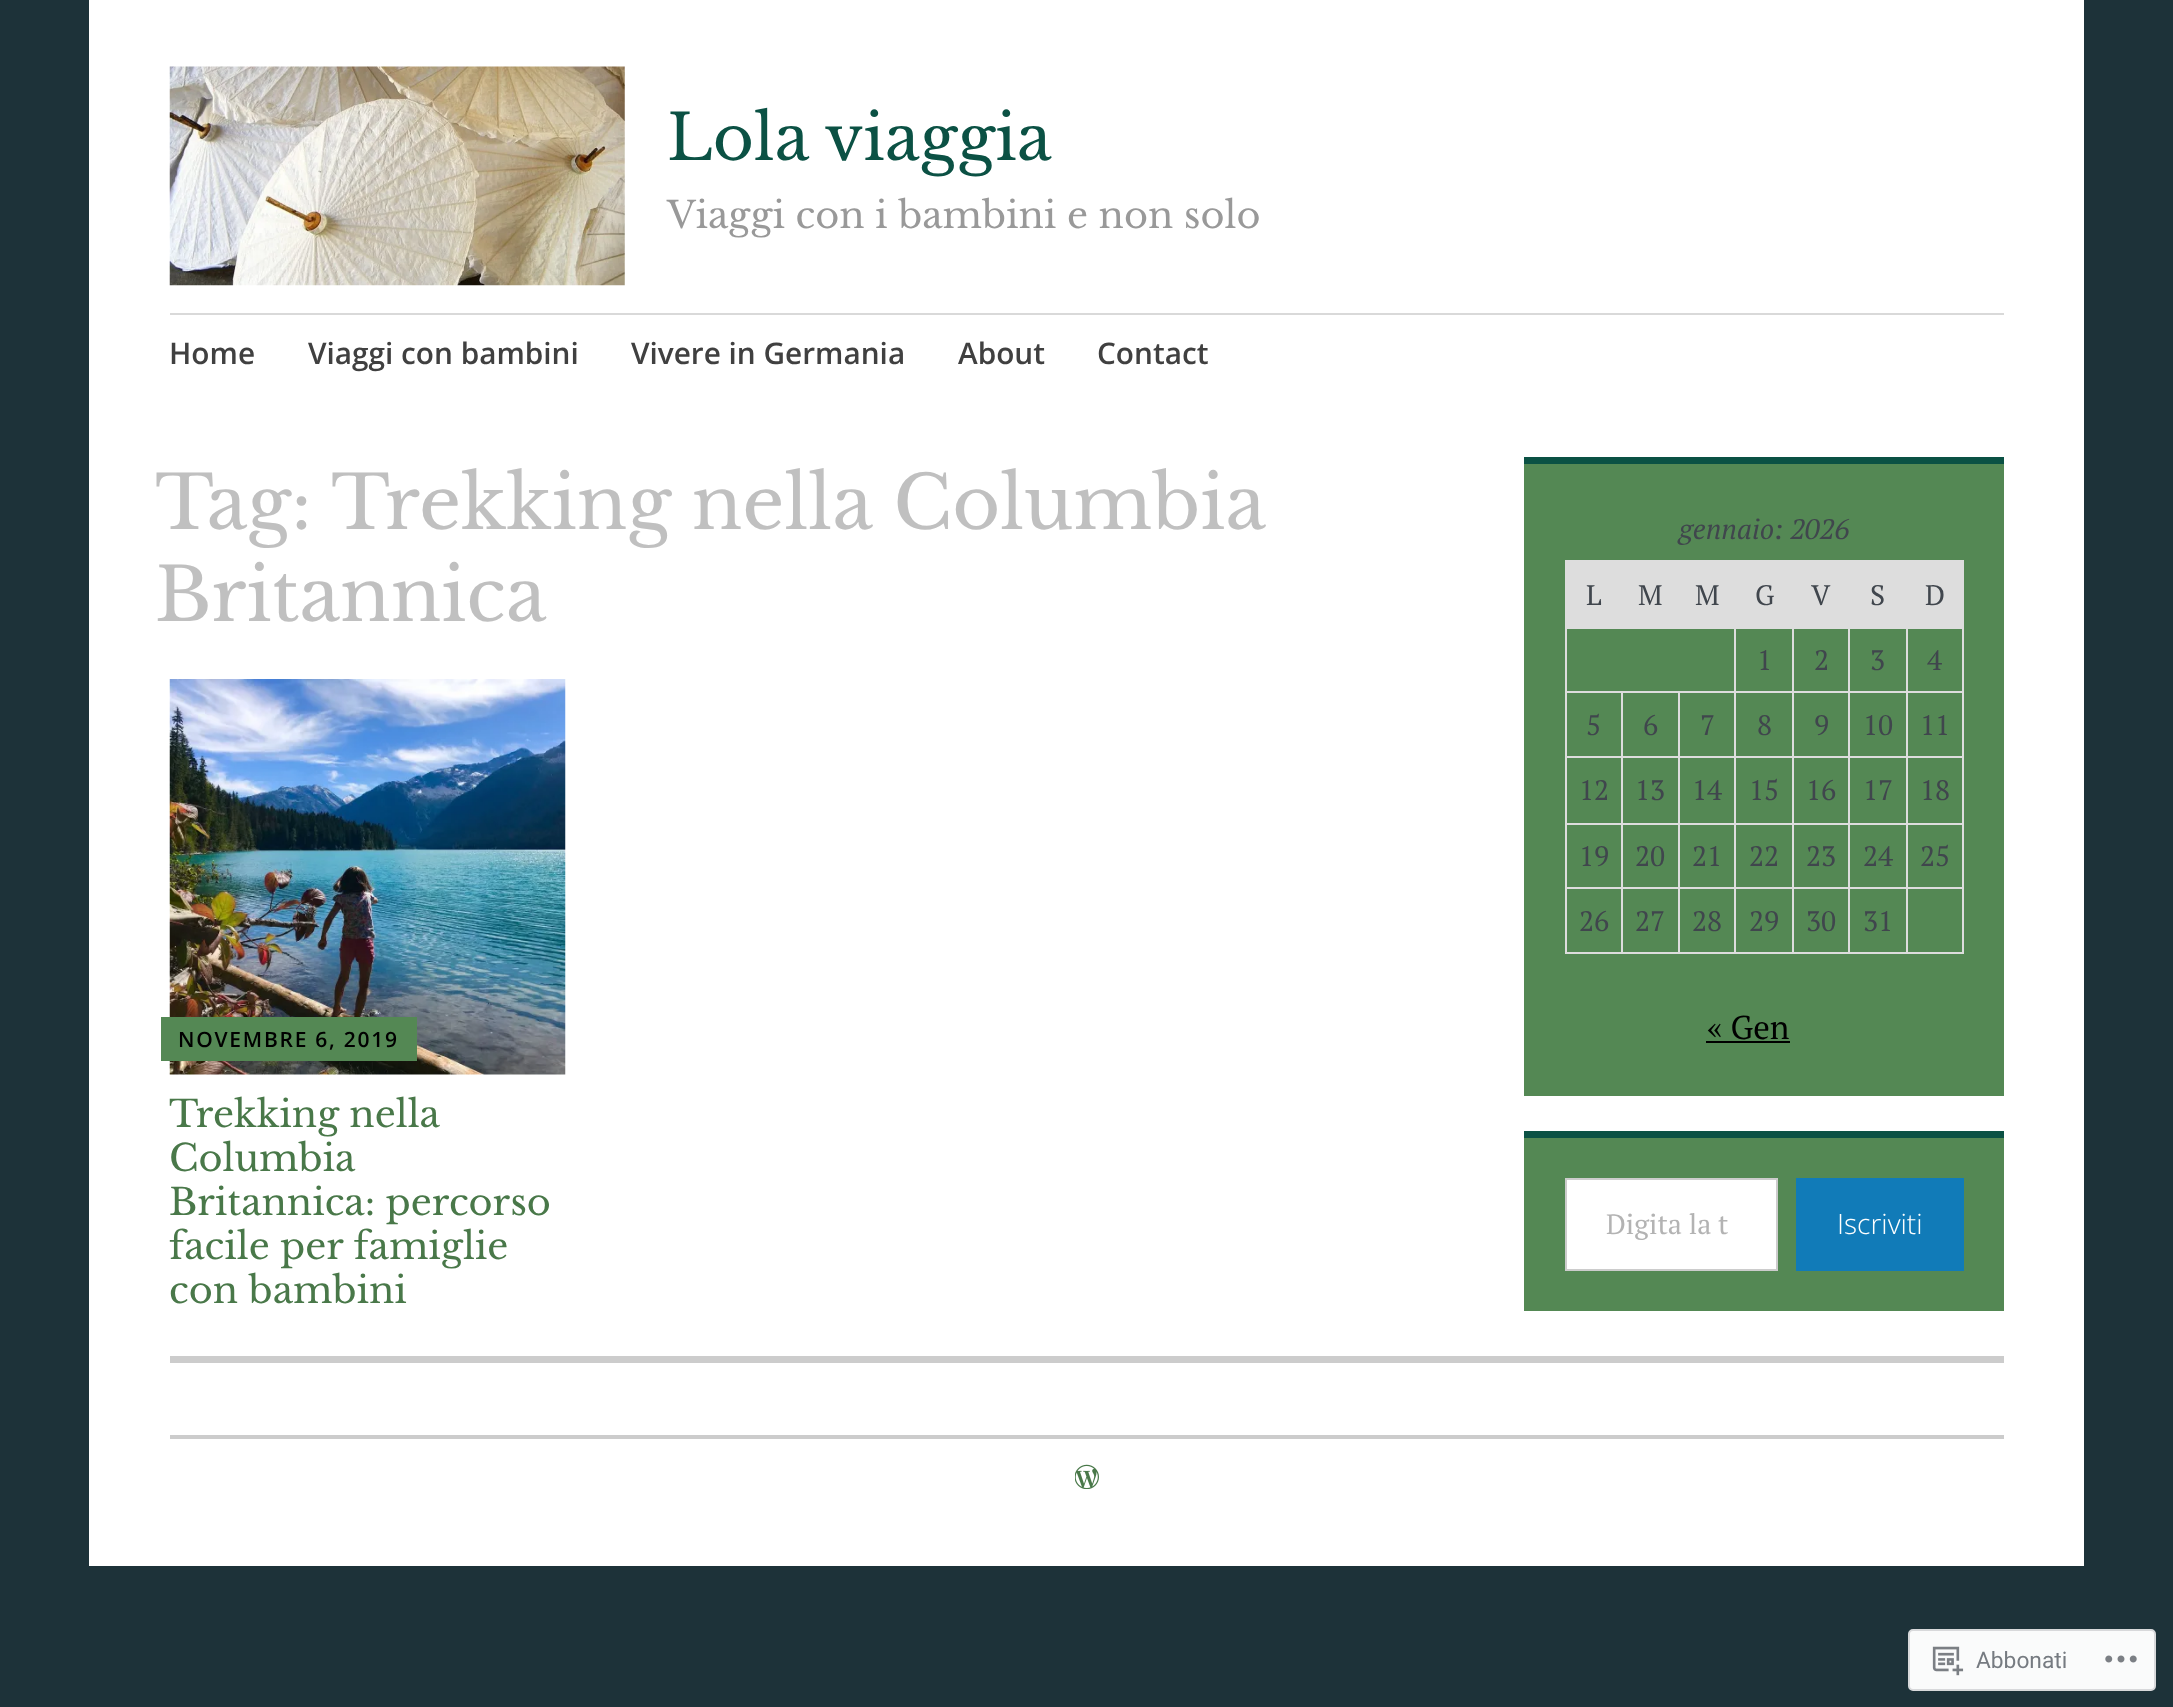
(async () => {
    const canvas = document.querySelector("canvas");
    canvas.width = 2173;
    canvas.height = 1707;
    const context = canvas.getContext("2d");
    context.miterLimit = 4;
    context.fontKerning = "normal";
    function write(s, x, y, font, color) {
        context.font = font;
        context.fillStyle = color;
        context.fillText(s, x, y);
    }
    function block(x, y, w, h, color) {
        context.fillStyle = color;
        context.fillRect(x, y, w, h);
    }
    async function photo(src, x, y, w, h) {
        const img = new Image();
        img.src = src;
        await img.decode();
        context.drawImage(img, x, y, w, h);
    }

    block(0, 0, 2173, 1707, "rgb(29, 50, 57)");
    block(89, 0, 1995, 1566, "rgb(255, 255, 255)");
    await photo("media/1.png", 169, 66, 456, 220);
    write("Lola viaggia", 667, 160, "63px Libre Baskerville", "rgb(11, 81, 68)");
    write("Viaggi con i bambini e non solo", 667, 228, "36.75px Libre Baskerville", "rgb(153, 153, 153)");
    block(170, 313, 1834, 2, "rgb(217, 217, 217)");
    write("Home", 169, 364, "600 29.75px Open Sans", "rgb(64, 64, 64)");
    write("Viaggi con bambini", 308, 364, "600 29.75px Open Sans", "rgb(64, 64, 64)");
    write("Vivere in Germania", 631, 364, "600 29.75px Open Sans", "rgb(64, 64, 64)");
    write("About", 958, 364, "600 29.75px Open Sans", "rgb(64, 64, 64)");
    write("Contact", 1097, 364, "600 29.75px Open Sans", "rgb(64, 64, 64)");
    write("Tag:", 155, 529, "73.5px Libre Baskerville", "rgb(192, 192, 192)");
    write("Trekking nella Columbia", 331, 529, "73.5px Libre Baskerville", "rgb(192, 192, 192)");
    write("Britannica", 155, 621, "73.5px Libre Baskerville", "rgb(192, 192, 192)");
    await photo("media/2.png", 169, 679, 397, 396);
    block(161, 1017, 256, 44, "rgb(84, 136, 84)");
    context.letterSpacing = "1.75px";
    write("NOVEMBRE 6, 2019", 178, 1047, "600 21px Open Sans", "rgb(0, 0, 0)");
    context.letterSpacing = "0px";
    write("Trekking nella", 169, 1127, "36.75px Libre Baskerville", "rgb(73, 120, 73)");
    write("Columbia", 169, 1171, "36.75px Libre Baskerville", "rgb(73, 120, 73)");
    write("Britannica: percorso", 169, 1215, "36.75px Libre Baskerville", "rgb(73, 120, 73)");
    write("facile per famiglie", 169, 1259, "36.75px Libre Baskerville", "rgb(73, 120, 73)");
    write("con bambini", 169, 1303, "36.75px Libre Baskerville", "rgb(73, 120, 73)");
    block(1524, 464, 480, 632, "rgb(84, 136, 84)");
    block(1524, 457, 480, 7, "rgb(11, 81, 68)");
    write("gennaio: 2026", 1679, 539, "italic 28.25px PT Serif", "rgb(64, 70, 77)");
    block(1565, 562, 399, 65, "rgb(221, 221, 221)");
    write("L", 1586, 605, "28.25px PT Serif", "rgb(64, 70, 77)");
    write("M", 1638, 605, "28.25px PT Serif", "rgb(64, 70, 77)");
    write("M", 1695, 605, "28.25px PT Serif", "rgb(64, 70, 77)");
    write("G", 1755, 605, "28.25px PT Serif", "rgb(64, 70, 77)");
    write("V", 1811, 605, "28.25px PT Serif", "rgb(64, 70, 77)");
    write("S", 1870, 605, "28.25px PT Serif", "rgb(64, 70, 77)");
    block(1565, 560, 399, 2, "rgb(221, 221, 221)");
    write("D", 1925, 605, "28.25px PT Serif", "rgb(64, 70, 77)");
    block(1906, 627, 58, 2, "rgb(221, 221, 221)");
    block(1906, 691, 58, 2, "rgb(221, 221, 221)");
    block(1906, 756, 58, 2, "rgb(221, 221, 221)");
    block(1906, 823, 58, 2, "rgb(221, 221, 221)");
    block(1906, 887, 58, 2, "rgb(221, 221, 221)");
    block(1962, 887, 2, 67, "rgb(221, 221, 221)");
    block(1906, 952, 58, 2, "rgb(221, 221, 221)");
    block(1906, 887, 2, 67, "rgb(221, 221, 221)");
    block(1848, 887, 60, 2, "rgb(221, 221, 221)");
    block(1906, 823, 2, 66, "rgb(221, 221, 221)");
    block(1848, 823, 60, 2, "rgb(221, 221, 221)");
    block(1906, 756, 2, 68, "rgb(221, 221, 221)");
    block(1848, 756, 60, 2, "rgb(221, 221, 221)");
    block(1906, 691, 2, 67, "rgb(221, 221, 221)");
    block(1848, 691, 60, 2, "rgb(221, 221, 221)");
    block(1906, 627, 2, 66, "rgb(221, 221, 221)");
    block(1848, 627, 60, 2, "rgb(221, 221, 221)");
    block(1848, 952, 60, 2, "rgb(221, 221, 221)");
    block(1848, 887, 2, 67, "rgb(221, 221, 221)");
    block(1792, 887, 58, 2, "rgb(221, 221, 221)");
    block(1848, 823, 2, 66, "rgb(221, 221, 221)");
    block(1792, 823, 58, 2, "rgb(221, 221, 221)");
    block(1848, 756, 2, 68, "rgb(221, 221, 221)");
    block(1792, 756, 58, 2, "rgb(221, 221, 221)");
    block(1848, 691, 2, 67, "rgb(221, 221, 221)");
    block(1792, 691, 58, 2, "rgb(221, 221, 221)");
    block(1848, 627, 2, 66, "rgb(221, 221, 221)");
    block(1792, 627, 58, 2, "rgb(221, 221, 221)");
    block(1792, 952, 58, 2, "rgb(221, 221, 221)");
    block(1792, 887, 2, 67, "rgb(221, 221, 221)");
    block(1734, 887, 60, 2, "rgb(221, 221, 221)");
    block(1792, 823, 2, 66, "rgb(221, 221, 221)");
    block(1734, 823, 60, 2, "rgb(221, 221, 221)");
    block(1792, 756, 2, 68, "rgb(221, 221, 221)");
    block(1734, 756, 60, 2, "rgb(221, 221, 221)");
    block(1792, 691, 2, 67, "rgb(221, 221, 221)");
    block(1734, 691, 60, 2, "rgb(221, 221, 221)");
    block(1792, 627, 2, 66, "rgb(221, 221, 221)");
    block(1734, 627, 60, 2, "rgb(221, 221, 221)");
    block(1734, 952, 60, 2, "rgb(221, 221, 221)");
    block(1734, 887, 2, 67, "rgb(221, 221, 221)");
    block(1678, 887, 58, 2, "rgb(221, 221, 221)");
    block(1734, 823, 2, 66, "rgb(221, 221, 221)");
    block(1678, 823, 58, 2, "rgb(221, 221, 221)");
    block(1734, 756, 2, 68, "rgb(221, 221, 221)");
    block(1678, 756, 58, 2, "rgb(221, 221, 221)");
    block(1734, 691, 2, 67, "rgb(221, 221, 221)");
    block(1678, 691, 58, 2, "rgb(221, 221, 221)");
    block(1734, 627, 2, 66, "rgb(221, 221, 221)");
    block(1565, 627, 171, 2, "rgb(221, 221, 221)");
    block(1678, 952, 58, 2, "rgb(221, 221, 221)");
    block(1678, 887, 2, 67, "rgb(221, 221, 221)");
    block(1621, 887, 59, 2, "rgb(221, 221, 221)");
    block(1678, 823, 2, 66, "rgb(221, 221, 221)");
    block(1621, 823, 59, 2, "rgb(221, 221, 221)");
    block(1678, 756, 2, 68, "rgb(221, 221, 221)");
    block(1621, 756, 59, 2, "rgb(221, 221, 221)");
    block(1678, 691, 2, 67, "rgb(221, 221, 221)");
    block(1621, 691, 59, 2, "rgb(221, 221, 221)");
    block(1621, 952, 59, 2, "rgb(221, 221, 221)");
    block(1621, 887, 2, 67, "rgb(221, 221, 221)");
    block(1565, 887, 57, 2, "rgb(221, 221, 221)");
    block(1621, 823, 2, 66, "rgb(221, 221, 221)");
    block(1565, 823, 57, 2, "rgb(221, 221, 221)");
    block(1621, 756, 2, 68, "rgb(221, 221, 221)");
    block(1565, 756, 57, 2, "rgb(221, 221, 221)");
    block(1621, 691, 2, 67, "rgb(221, 221, 221)");
    block(1565, 691, 57, 2, "rgb(221, 221, 221)");
    block(1565, 952, 57, 2, "rgb(221, 221, 221)");
    block(1565, 887, 2, 67, "rgb(221, 221, 221)");
    block(1565, 823, 2, 66, "rgb(221, 221, 221)");
    block(1565, 756, 2, 68, "rgb(221, 221, 221)");
    block(1565, 691, 2, 67, "rgb(221, 221, 221)");
    block(1565, 627, 2, 66, "rgb(221, 221, 221)");
    write("1", 1757, 670, "28.25px PT Serif", "rgb(64, 70, 77)");
    write("2", 1814, 670, "28.25px PT Serif", "rgb(64, 70, 77)");
    write("3", 1870, 670, "28.25px PT Serif", "rgb(64, 70, 77)");
    block(1962, 823, 2, 66, "rgb(221, 221, 221)");
    block(1962, 756, 2, 68, "rgb(221, 221, 221)");
    block(1962, 691, 2, 67, "rgb(221, 221, 221)");
    block(1962, 627, 2, 66, "rgb(221, 221, 221)");
    write("4", 1927, 670, "28.25px PT Serif", "rgb(64, 70, 77)");
    write("5", 1586, 735, "28.25px PT Serif", "rgb(64, 70, 77)");
    write("6", 1643, 735, "28.25px PT Serif", "rgb(64, 70, 77)");
    write("7", 1700, 735, "28.25px PT Serif", "rgb(64, 70, 77)");
    write("8", 1757, 735, "28.25px PT Serif", "rgb(64, 70, 77)");
    write("9", 1814, 735, "28.25px PT Serif", "rgb(64, 70, 77)");
    write("10", 1863, 735, "28.25px PT Serif", "rgb(64, 70, 77)");
    write("11", 1920, 735, "28.25px PT Serif", "rgb(64, 70, 77)");
    write("12", 1579, 800, "28.25px PT Serif", "rgb(64, 70, 77)");
    write("13", 1635, 800, "28.25px PT Serif", "rgb(64, 70, 77)");
    write("14", 1692, 800, "28.25px PT Serif", "rgb(64, 70, 77)");
    write("15", 1749, 800, "28.25px PT Serif", "rgb(64, 70, 77)");
    write("16", 1806, 800, "28.25px PT Serif", "rgb(64, 70, 77)");
    write("17", 1863, 800, "28.25px PT Serif", "rgb(64, 70, 77)");
    write("18", 1920, 800, "28.25px PT Serif", "rgb(64, 70, 77)");
    write("19", 1579, 866, "28.25px PT Serif", "rgb(64, 70, 77)");
    write("20", 1635, 866, "28.25px PT Serif", "rgb(64, 70, 77)");
    write("21", 1692, 866, "28.25px PT Serif", "rgb(64, 70, 77)");
    write("22", 1749, 866, "28.25px PT Serif", "rgb(64, 70, 77)");
    write("23", 1806, 866, "28.25px PT Serif", "rgb(64, 70, 77)");
    write("24", 1863, 866, "28.25px PT Serif", "rgb(64, 70, 77)");
    write("25", 1920, 866, "28.25px PT Serif", "rgb(64, 70, 77)");
    write("26", 1579, 931, "28.25px PT Serif", "rgb(64, 70, 77)");
    write("27", 1635, 931, "28.25px PT Serif", "rgb(64, 70, 77)");
    write("28", 1692, 931, "28.25px PT Serif", "rgb(64, 70, 77)");
    write("29", 1749, 931, "28.25px PT Serif", "rgb(64, 70, 77)");
    write("30", 1806, 931, "28.25px PT Serif", "rgb(64, 70, 77)");
    write("31", 1863, 931, "28.25px PT Serif", "rgb(64, 70, 77)");
    write("« Gen", 1707, 1039, "33px PT Serif", "rgb(0, 0, 0)");
    block(1706, 1041, 84, 2, "rgb(0, 0, 0)");
    block(1524, 1138, 480, 173, "rgb(84, 136, 84)");
    block(1524, 1131, 480, 7, "rgb(11, 81, 68)");
    context.fillStyle = "rgb(255, 255, 255)";
    context.beginPath();
    context.rect(1566, 1179, 211, 91);
    context.fill();
    context.strokeStyle = "rgb(204, 204, 204)";
    context.lineWidth = 2;
    context.stroke();
    write("Digita la t", 1606, 1234, "28px PT Serif", "rgb(179, 179, 179)");
    block(1796, 1178, 168, 93, "rgb(17, 123, 184)");
    write("Iscriviti", 1837, 1234, "300 28px Open Sans", "rgb(255, 255, 255)");
    block(170, 1356, 1834, 7, "rgb(204, 204, 204)");
    block(170, 1435, 1834, 4, "rgb(204, 204, 204)");
    await photo("media/3.png", 1075, 1464, 24, 25);
    context.fillStyle = "rgb(250, 251, 251)";
    context.beginPath();
    context.roundRect(1909, 1630, 246, 60, 4);
    context.fill();
    context.strokeStyle = "rgb(216, 217, 219)";
    context.stroke();
    await photo("media/4.png", 1932, 1646, 32, 30);
    write("Abbonati", 1976, 1668, "22.75px Roboto", "rgb(118, 123, 129)");
    await photo("media/5.png", 2105, 1655, 32, 8);
})();
